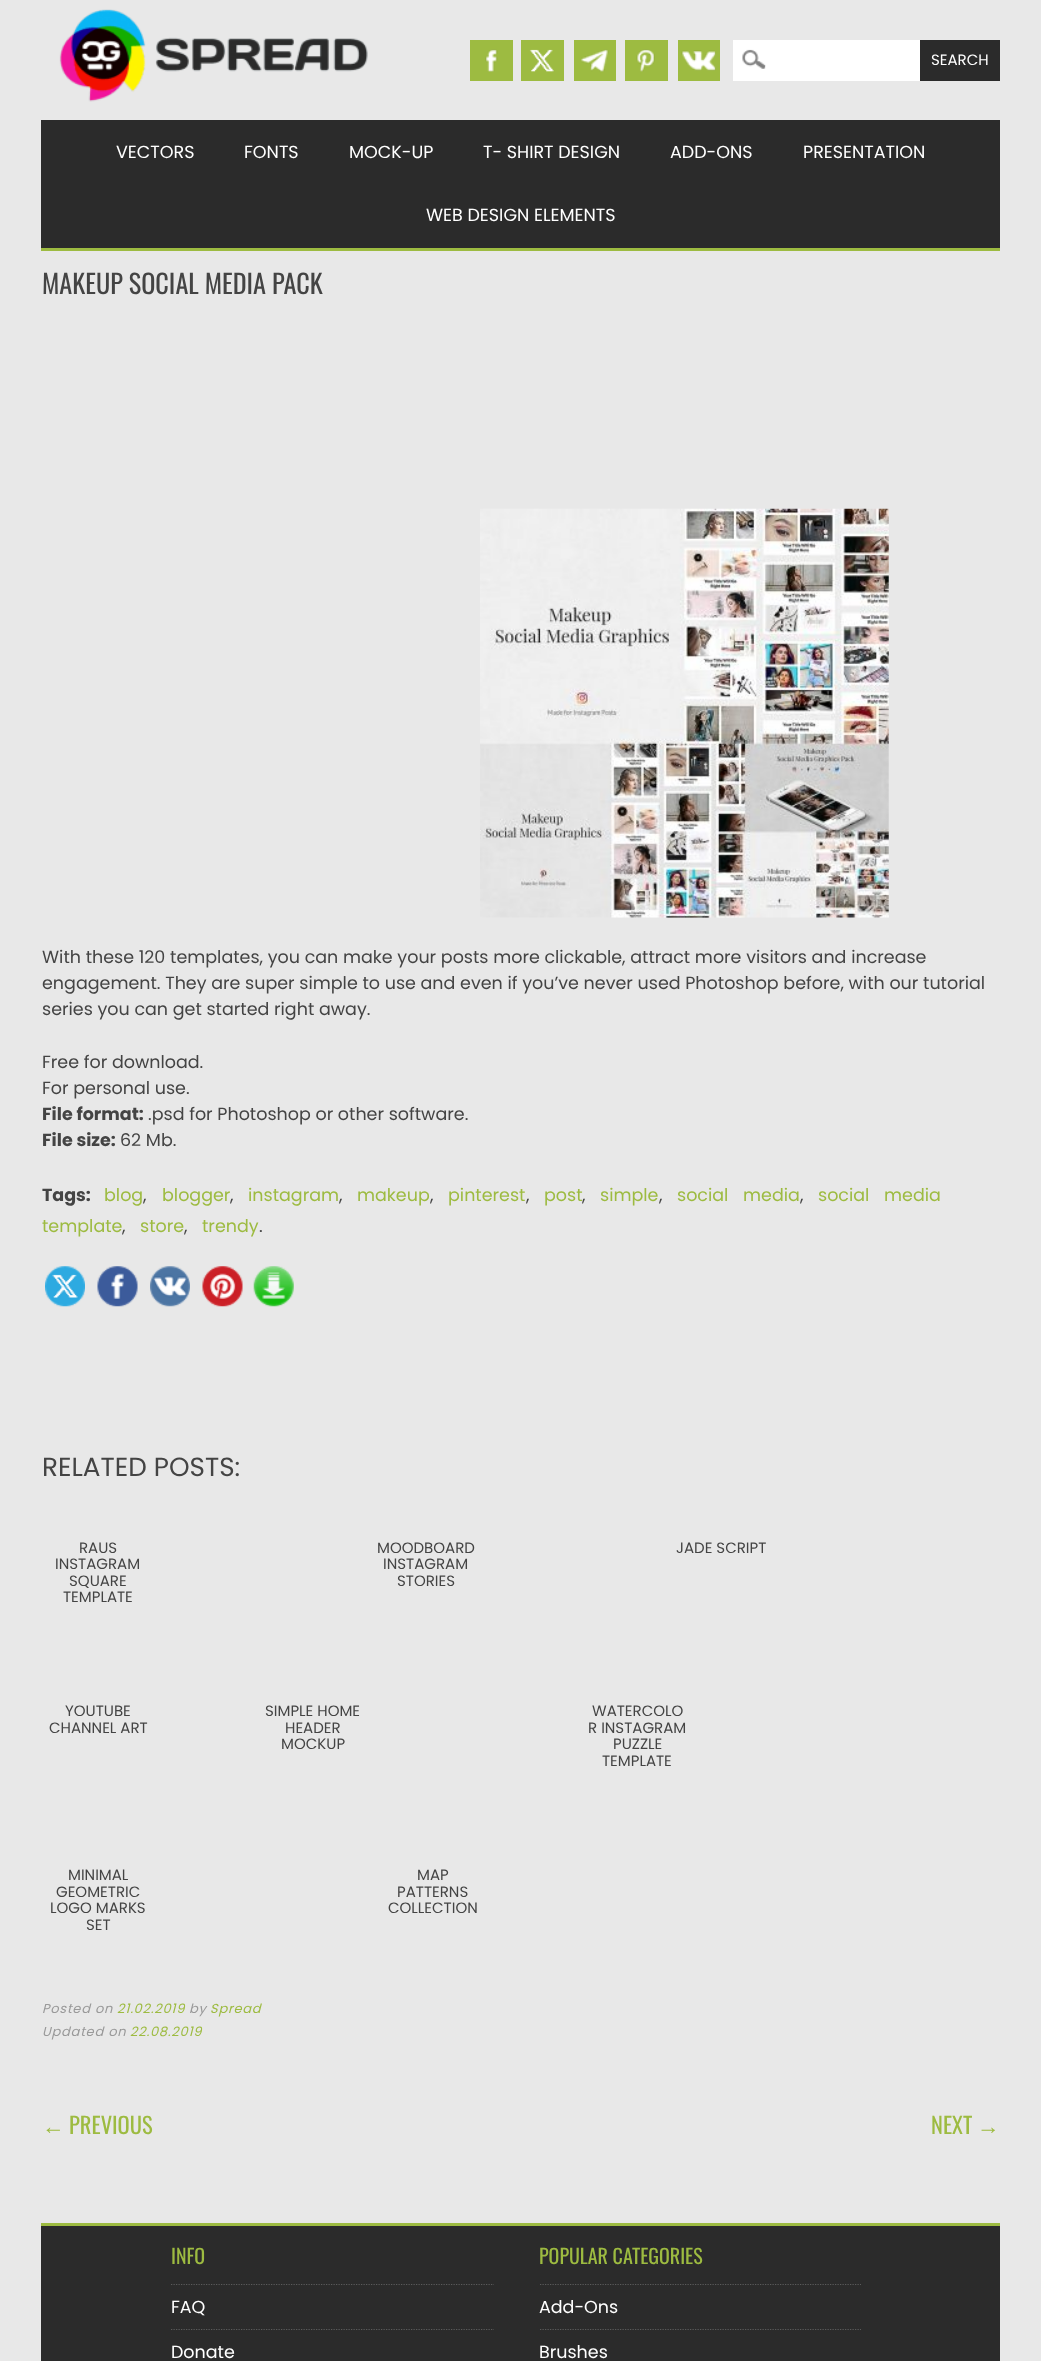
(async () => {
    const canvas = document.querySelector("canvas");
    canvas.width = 1041;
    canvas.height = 2361;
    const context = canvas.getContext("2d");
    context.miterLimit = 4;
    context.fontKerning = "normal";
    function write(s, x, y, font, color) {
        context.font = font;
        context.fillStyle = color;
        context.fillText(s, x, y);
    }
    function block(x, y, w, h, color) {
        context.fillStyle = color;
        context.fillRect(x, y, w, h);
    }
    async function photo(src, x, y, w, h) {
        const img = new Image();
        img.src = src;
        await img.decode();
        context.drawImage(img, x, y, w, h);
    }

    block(0, 0, 1041, 2361, "rgb(232, 232, 232)");
    await photo("media/1.png", 59, 9, 309, 93);
    block(470, 40, 43, 41, "rgb(157, 187, 65)");
    await photo("media/2.png", 485, 49, 13, 23);
    block(521, 40, 43, 41, "rgb(157, 187, 65)");
    await photo("media/3.png", 529, 49, 25, 23);
    block(574, 40, 42, 41, "rgb(157, 187, 65)");
    await photo("media/4.png", 581, 49, 28, 23);
    block(625, 40, 43, 41, "rgb(157, 187, 65)");
    await photo("media/5.png", 636, 49, 19, 23);
    block(678, 40, 42, 41, "rgb(157, 187, 65)");
    await photo("media/6.png", 681, 50, 35, 21);
    block(733, 40, 187, 41, "rgb(255, 255, 255)");
    await photo("media/7.png", 742, 49, 24, 20);
    block(920, 40, 80, 41, "rgb(43, 43, 43)");
    write("SEARCH", 931, 65, "15px Poppins", "rgb(255, 255, 255)");
    block(41, 120, 959, 128, "rgb(43, 43, 43)");
    write("VECTORS", 116, 158, "17.5px Poppins", "rgb(255, 255, 255)");
    write("FONTS", 244, 158, "17.5px Poppins", "rgb(255, 255, 255)");
    write("MOCK-UP", 349, 158, "17.5px Poppins", "rgb(255, 255, 255)");
    write("T- SHIRT DESIGN", 483, 158, "17.5px Poppins", "rgb(255, 255, 255)");
    write("ADD-ONS", 670, 158, "17.5px Poppins", "rgb(255, 255, 255)");
    write("PRESENTATION", 803, 158, "17.5px Poppins", "rgb(255, 255, 255)");
    write("WEB DESIGN ELEMENTS", 426, 221, "17.5px Poppins", "rgb(255, 255, 255)");
    block(41, 248, 959, 3, "rgb(157, 187, 65)");
    write("MAKEUP SOCIAL MEDIA PACK", 42, 294, "26.25px Oswald", "rgb(68, 68, 68)");
    await photo("media/8.png", 480, 508, 409, 410);
    write("With these 120 templates, you can make your posts more clickable, attract more visitors and increase", 42, 963, "17.5px Poppins", "rgb(68, 68, 68)");
    write("engagement. They are super simple to use and even if you’ve never used Photoshop before, with our tutorial", 42, 989, "17.5px Poppins", "rgb(68, 68, 68)");
    write("series you can get started right away.", 42, 1015, "17.5px Poppins", "rgb(68, 68, 68)");
    write("Free for download.", 42, 1068, "17.5px Poppins", "rgb(68, 68, 68)");
    write("For personal use.", 42, 1094, "17.5px Poppins", "rgb(68, 68, 68)");
    write("File format:", 42, 1120, "bold 17.5px Poppins", "rgb(68, 68, 68)");
    write(".psd for Photoshop or other software.", 148, 1120, "17.5px Poppins", "rgb(68, 68, 68)");
    write("File size:", 42, 1146, "bold 17.5px Poppins", "rgb(68, 68, 68)");
    write("62 Mb.", 120, 1146, "17.5px Poppins", "rgb(68, 68, 68)");
    write("Tags:", 42, 1201, "bold 17.5px Poppins", "rgb(68, 68, 68)");
    write("blog", 104, 1201, "17.5px Poppins", "rgb(157, 187, 65)");
    write(",", 143, 1201, "17.5px Poppins", "rgb(68, 68, 68)");
    write("blogger", 162, 1201, "17.5px Poppins", "rgb(157, 187, 65)");
    write(",", 230, 1201, "17.5px Poppins", "rgb(68, 68, 68)");
    write("instagram", 248, 1201, "17.5px Poppins", "rgb(157, 187, 65)");
    write(",", 339, 1201, "17.5px Poppins", "rgb(68, 68, 68)");
    write("makeup", 357, 1201, "17.5px Poppins", "rgb(157, 187, 65)");
    write(",", 430, 1201, "17.5px Poppins", "rgb(68, 68, 68)");
    write("pinterest", 448, 1201, "17.5px Poppins", "rgb(157, 187, 65)");
    write(",", 526, 1201, "17.5px Poppins", "rgb(68, 68, 68)");
    write("post", 544, 1201, "17.5px Poppins", "rgb(157, 187, 65)");
    write(",", 582, 1201, "17.5px Poppins", "rgb(68, 68, 68)");
    write("simple", 600, 1201, "17.5px Poppins", "rgb(157, 187, 65)");
    write(",", 659, 1201, "17.5px Poppins", "rgb(68, 68, 68)");
    context.wordSpacing = "10px";
    write("social media", 677, 1201, "17.5px Poppins", "rgb(157, 187, 65)");
    context.wordSpacing = "0px";
    write(",", 800, 1201, "17.5px Poppins", "rgb(68, 68, 68)");
    context.wordSpacing = "10px";
    write("social media", 818, 1201, "17.5px Poppins", "rgb(157, 187, 65)");
    context.wordSpacing = "0px";
    write("template", 42, 1232, "17.5px Poppins", "rgb(157, 187, 65)");
    write(",", 122, 1232, "17.5px Poppins", "rgb(68, 68, 68)");
    write("store", 140, 1232, "17.5px Poppins", "rgb(157, 187, 65)");
    write(",", 184, 1232, "17.5px Poppins", "rgb(68, 68, 68)");
    write("trendy", 202, 1232, "17.5px Poppins", "rgb(157, 187, 65)");
    write(".", 259, 1232, "17.5px Poppins", "rgb(68, 68, 68)");
    await photo("media/9.png", 45, 1266, 40, 41);
    await photo("media/10.png", 97, 1266, 41, 41);
    await photo("media/11.png", 150, 1266, 40, 41);
    await photo("media/12.png", 202, 1266, 41, 41);
    await photo("media/13.png", 253, 1266, 41, 41);
    write("RELATED POSTS:", 42, 1476, "26.25px Poppins", "rgb(68, 68, 68)");
    write("RAUS", 79, 1553, "15px Poppins", "rgb(68, 68, 68)");
    write("INSTAGRAM", 55, 1569, "15px Poppins", "rgb(68, 68, 68)");
    write("SQUARE", 69, 1586, "15px Poppins", "rgb(68, 68, 68)");
    write("TEMPLATE", 63, 1602, "15px Poppins", "rgb(68, 68, 68)");
    write("MOODBOARD", 377, 1553, "15px Poppins", "rgb(68, 68, 68)");
    write("INSTAGRAM", 383, 1569, "15px Poppins", "rgb(68, 68, 68)");
    write("STORIES", 397, 1586, "15px Poppins", "rgb(68, 68, 68)");
    write("JADE SCRIPT", 676, 1553, "15px Poppins", "rgb(68, 68, 68)");
    write("YOUTUBE", 65, 1716, "15px Poppins", "rgb(68, 68, 68)");
    write("CHANNEL ART", 49, 1733, "15px Poppins", "rgb(68, 68, 68)");
    write("SIMPLE HOME", 265, 1716, "15px Poppins", "rgb(68, 68, 68)");
    write("HEADER", 285, 1733, "15px Poppins", "rgb(68, 68, 68)");
    write("MOCKUP", 281, 1749, "15px Poppins", "rgb(68, 68, 68)");
    write("WATERCOLO", 592, 1716, "15px Poppins", "rgb(68, 68, 68)");
    write("R INSTAGRAM", 588, 1733, "15px Poppins", "rgb(68, 68, 68)");
    write("PUZZLE", 613, 1749, "15px Poppins", "rgb(68, 68, 68)");
    write("TEMPLATE", 602, 1766, "15px Poppins", "rgb(68, 68, 68)");
    write("MINIMAL", 68, 1880, "15px Poppins", "rgb(68, 68, 68)");
    write("GEOMETRIC", 56, 1897, "15px Poppins", "rgb(68, 68, 68)");
    write("LOGO MARKS", 50, 1913, "15px Poppins", "rgb(68, 68, 68)");
    write("SET", 86, 1930, "15px Poppins", "rgb(68, 68, 68)");
    write("MAP", 417, 1880, "15px Poppins", "rgb(68, 68, 68)");
    write("PATTERNS", 397, 1897, "15px Poppins", "rgb(68, 68, 68)");
    write("COLLECTION", 388, 1913, "15px Poppins", "rgb(68, 68, 68)");
    context.letterSpacing = "0.75px";
    write("Posted on", 42, 2013, "italic 13px Poppins", "rgb(153, 153, 153)");
    write("21.02.2019", 117, 2013, "italic 13px Poppins", "rgb(157, 187, 65)");
    write("by", 189, 2013, "italic 13px Poppins", "rgb(153, 153, 153)");
    write("Spread", 210, 2013, "italic 13px Poppins", "rgb(157, 187, 65)");
    write("Updated on", 42, 2036, "italic 13px Poppins", "rgb(153, 153, 153)");
    write("22.08.2019", 130, 2036, "italic 13px Poppins", "rgb(157, 187, 65)");
    context.letterSpacing = "0px";
    write("←", 42, 2134, "22.5px Liberation Sans", "rgb(157, 187, 65)");
    write("PREVIOUS", 69, 2134, "22.5px Oswald", "rgb(157, 187, 65)");
    write("NEXT", 931, 2134, "22.5px Oswald", "rgb(157, 187, 65)");
    write("→", 977, 2134, "22.5px Liberation Sans", "rgb(157, 187, 65)");
    block(41, 2226, 959, 135, "rgb(43, 43, 43)");
    block(41, 2223, 959, 3, "rgb(157, 187, 65)");
    write("INFO", 171, 2264, "20px Oswald", "rgb(157, 187, 65)");
    context.beginPath();
    context.moveTo(171, 2284.5);
    context.lineTo(494, 2284.5);
    context.strokeStyle = "rgb(91, 91, 91)";
    context.lineWidth = 1.2;
    context.setLineDash([1.25, 1.25]);
    context.stroke();
    write("FAQ", 171, 2313, "17.5px Poppins", "rgb(255, 255, 255)");
    context.beginPath();
    context.moveTo(171, 2329.5);
    context.lineTo(494, 2329.5);
    context.stroke();
    write("Donate", 171, 2358, "17.5px Poppins", "rgb(255, 255, 255)");
    write("POPULAR CATEGORIES", 539, 2264, "20px Oswald", "rgb(157, 187, 65)");
    context.beginPath();
    context.moveTo(540, 2284.5);
    context.lineTo(861, 2284.5);
    context.stroke();
    write("Add-Ons", 539, 2313, "17.5px Poppins", "rgb(255, 255, 255)");
    context.beginPath();
    context.moveTo(540, 2329.5);
    context.lineTo(861, 2329.5);
    context.stroke();
    write("Brushes", 539, 2358, "17.5px Poppins", "rgb(255, 255, 255)");
})();
